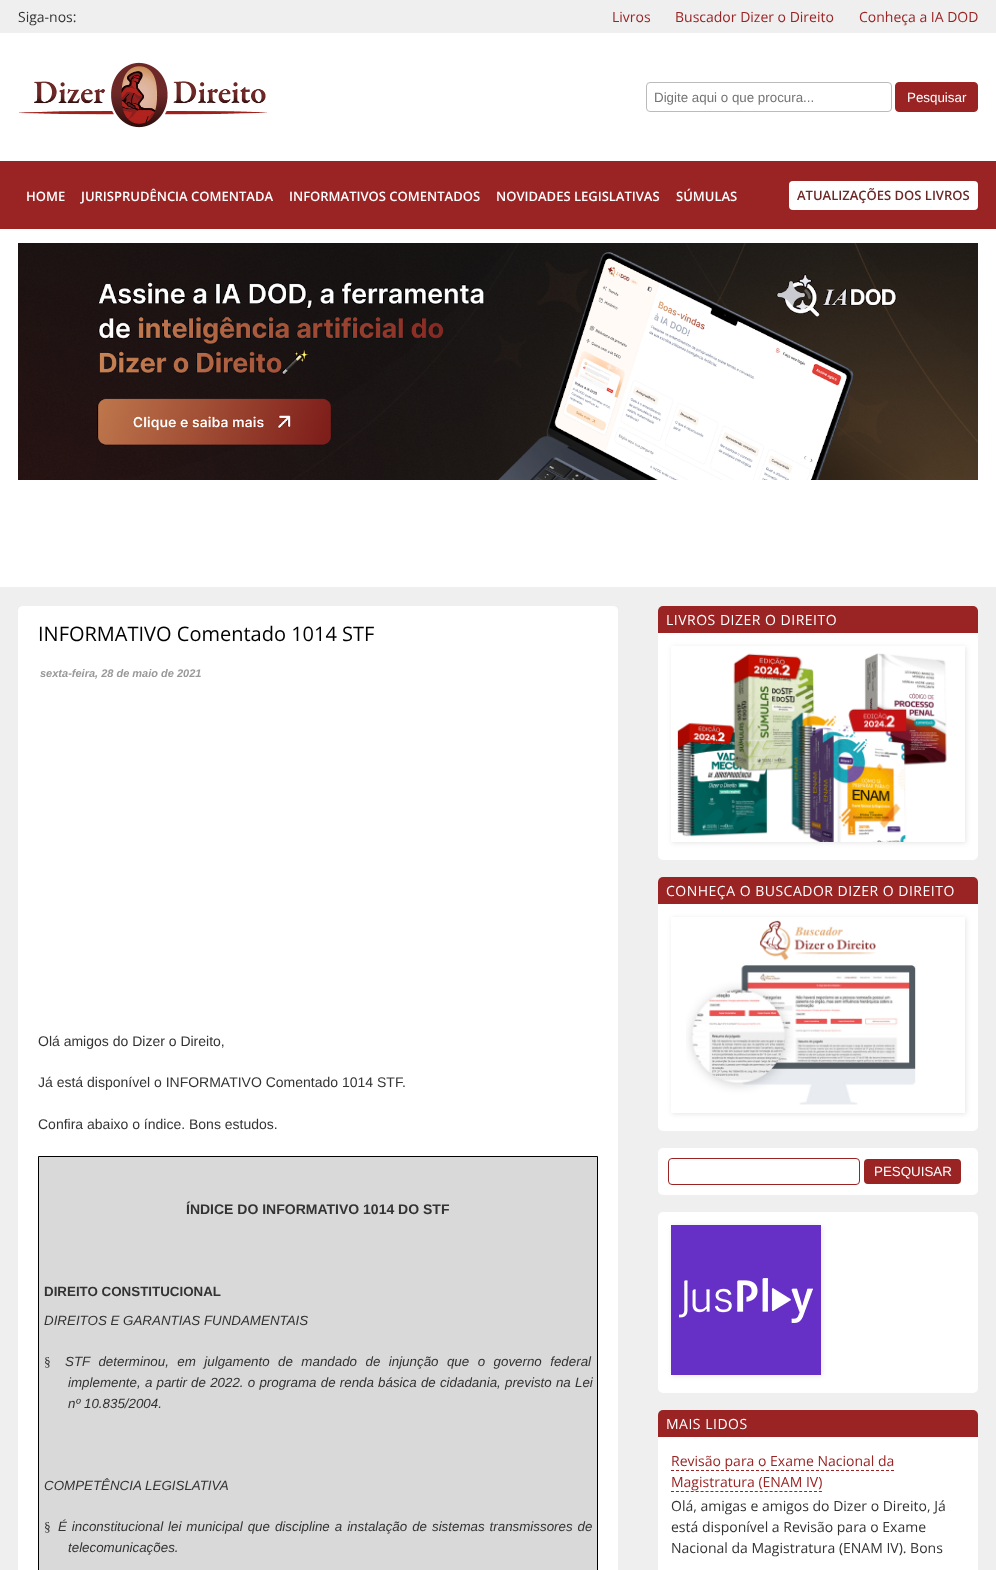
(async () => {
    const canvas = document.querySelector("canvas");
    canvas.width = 996;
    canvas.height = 1570;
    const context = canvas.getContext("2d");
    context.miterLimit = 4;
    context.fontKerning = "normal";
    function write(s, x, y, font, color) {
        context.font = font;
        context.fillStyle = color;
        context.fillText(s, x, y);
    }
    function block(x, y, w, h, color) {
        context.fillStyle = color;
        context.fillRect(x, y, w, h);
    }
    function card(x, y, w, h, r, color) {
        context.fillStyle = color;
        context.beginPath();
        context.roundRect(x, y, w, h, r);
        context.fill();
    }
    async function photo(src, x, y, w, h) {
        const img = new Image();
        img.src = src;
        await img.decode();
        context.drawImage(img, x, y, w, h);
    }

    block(0, 0, 996, 1570, "rgb(239, 239, 239)");
    block(0, 33, 996, 554, "rgb(255, 255, 255)");
    write("Siga-nos:", 18, 22, "14px Open Sans", "rgb(51, 51, 51)");
    write("Livros", 612, 22, "14px Open Sans", "rgb(154, 35, 36)");
    write("Buscador Dizer o Direito", 675, 22, "14px Open Sans", "rgb(154, 35, 36)");
    write("Conheça a IA DOD", 859, 22, "14px Open Sans", "rgb(154, 35, 36)");
    await photo("media/1.png", 18, 62, 250, 66);
    context.beginPath();
    context.roundRect(646.5, 82.5, 245, 29, 3.5);
    context.strokeStyle = "rgb(187, 187, 187)";
    context.stroke();
    write("Digite aqui o que procura...", 654, 102, "13.35px Liberation Sans", "rgb(117, 117, 117)");
    context.fillStyle = "rgb(154, 35, 36)";
    context.beginPath();
    context.roundRect(895.5, 82.5, 82, 29, 3.5);
    context.fill();
    context.strokeStyle = "rgb(154, 35, 36)";
    context.stroke();
    write("Pesquisar", 907, 102, "13.35px Liberation Sans", "rgb(255, 255, 255)");
    block(0, 161, 996, 68, "rgb(154, 35, 36)");
    write("HOME", 26, 201, "600 13px Open Sans", "rgb(255, 255, 255)");
    write("JURISPRUDÊNCIA COMENTADA", 81, 201, "600 13px Open Sans", "rgb(255, 255, 255)");
    write("INFORMATIVOS COMENTADOS", 289, 201, "600 13px Open Sans", "rgb(255, 255, 255)");
    write("NOVIDADES LEGISLATIVAS", 496, 201, "600 13px Open Sans", "rgb(255, 255, 255)");
    write("SÚMULAS", 676, 201, "600 13px Open Sans", "rgb(255, 255, 255)");
    card(789, 181, 189, 29, 4, "rgb(255, 255, 255)");
    write("ATUALIZAÇÕES DOS LIVROS", 797, 200, "600 13px Open Sans", "rgb(108, 40, 39)");
    await photo("media/2.png", 18, 243, 960, 237);
    context.fillStyle = "rgb(204, 204, 204)";
    context.filter = "blur(0.5px)";
    context.beginPath();
    context.roundRect(18, 606, 600, 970, 4);
    context.fill();
    context.filter = "none";
    card(18, 606, 600, 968, 4, "rgb(255, 255, 255)");
    write("INFORMATIVO Comentado 1014 STF", 38, 641, "20px Open Sans", "rgb(0, 0, 0)");
    write("sexta-feira, 28 de maio de 2021", 40, 677, "italic bold 11px Liberation Sans", "rgb(153, 153, 153)");
    write("Olá amigos do Dizer o Direito,", 38, 1046, "14px Liberation Sans", "rgb(51, 51, 51)");
    write("Já está disponível o INFORMATIVO Comentado 1014 STF.", 38, 1087, "14px Liberation Sans", "rgb(51, 51, 51)");
    write("Confira abaixo o índice. Bons estudos.", 38, 1129, "14px Liberation Sans", "rgb(51, 51, 51)");
    context.fillStyle = "rgb(217, 217, 217)";
    context.beginPath();
    context.rect(38.5, 1156.5, 559, 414);
    context.fill();
    context.strokeStyle = "rgb(0, 0, 0)";
    context.stroke();
    write("ÍNDICE DO INFORMATIVO 1014 DO STF", 186, 1214, "bold 14px Liberation Sans", "rgb(51, 51, 51)");
    write("DIREITO CONSTITUCIONAL", 44, 1296, "bold 13.35px Liberation Sans", "rgb(51, 51, 51)");
    write("DIREITOS E GARANTIAS FUNDAMENTAIS", 44, 1325, "italic 13.35px Liberation Sans", "rgb(51, 51, 51)");
    write("§", 44, 1366, "13.35px Liberation Serif", "rgb(51, 51, 51)");
    context.wordSpacing = "4.75px";
    write("STF determinou, em julgamento de mandado de injunção que o governo federal", 65, 1366, "italic 13.35px Liberation Sans", "rgb(51, 51, 51)");
    context.wordSpacing = "0.5px";
    write("implemente, a partir de 2022. o programa de renda básica de cidadania, previsto na Lei", 68, 1387, "italic 13.35px Liberation Sans", "rgb(51, 51, 51)");
    context.wordSpacing = "0px";
    write("nº 10.835/2004.", 68, 1408, "italic 13.35px Liberation Sans", "rgb(51, 51, 51)");
    write("COMPETÊNCIA LEGISLATIVA", 44, 1490, "italic 13.35px Liberation Sans", "rgb(51, 51, 51)");
    write("§", 44, 1531, "13.35px Liberation Serif", "rgb(51, 51, 51)");
    context.wordSpacing = "1.25px";
    write("É inconstitucional lei municipal que discipline a instalação de sistemas transmissores de", 58, 1531, "italic 13.35px Liberation Sans", "rgb(51, 51, 51)");
    context.wordSpacing = "0px";
    write("telecomunicações.", 68, 1552, "italic 13.35px Liberation Sans", "rgb(51, 51, 51)");
    card(658, 606, 320, 254, 5, "rgb(255, 255, 255)");
    context.fillStyle = "rgb(154, 35, 36)";
    context.beginPath();
    context.roundRect(658, 606, 320, 27, [5, 5, 0, 0]);
    context.fill();
    context.letterSpacing = "0.5px";
    write("LIVROS DIZER O DIREITO", 666, 625, "14px Open Sans", "rgb(255, 255, 255)");
    context.save();
    context.beginPath();
    context.moveTo(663, 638);
    context.lineTo(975, 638);
    context.lineTo(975, 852);
    context.lineTo(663, 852);
    context.closePath();
    context.moveTo(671, 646);
    context.lineTo(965, 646);
    context.lineTo(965, 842);
    context.lineTo(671, 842);
    context.closePath();
    context.clip("evenodd");
    context.fillStyle = "rgba(0, 0, 0, 0.1)";
    context.filter = "blur(2.5px)";
    context.beginPath();
    context.rect(672, 647, 294, 196);
    context.fill();
    context.filter = "none";
    context.restore();
    await photo("media/3.png", 677, 653, 270, 189);
    card(658, 877, 320, 254, 5, "rgb(255, 255, 255)");
    context.fillStyle = "rgb(154, 35, 36)";
    context.beginPath();
    context.roundRect(658, 877, 320, 27, [5, 5, 0, 0]);
    context.fill();
    write("CONHEÇA O BUSCADOR DIZER O DIREITO", 666, 896, "14px Open Sans", "rgb(255, 255, 255)");
    context.save();
    context.beginPath();
    context.moveTo(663, 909);
    context.lineTo(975, 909);
    context.lineTo(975, 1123);
    context.lineTo(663, 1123);
    context.closePath();
    context.moveTo(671, 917);
    context.lineTo(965, 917);
    context.lineTo(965, 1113);
    context.lineTo(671, 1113);
    context.closePath();
    context.clip("evenodd");
    context.fillStyle = "rgba(0, 0, 0, 0.1)";
    context.filter = "blur(2.5px)";
    context.beginPath();
    context.rect(672, 918, 294, 196);
    context.fill();
    context.filter = "none";
    context.restore();
    await photo("media/4.png", 686, 920, 230, 185);
    card(658, 1148, 320, 47, 5, "rgb(255, 255, 255)");
    context.beginPath();
    context.roundRect(668.5, 1158.5, 191, 26, 3.5);
    context.strokeStyle = "rgb(154, 35, 36)";
    context.stroke();
    card(864, 1159, 97, 25, 4, "rgb(154, 35, 36)");
    context.letterSpacing = "0px";
    write("PESQUISAR", 874, 1176, "13.35px Liberation Sans", "rgb(255, 255, 255)");
    card(658, 1212, 320, 181, 5, "rgb(255, 255, 255)");
    context.fillStyle = "rgba(0, 0, 0, 0.1)";
    context.filter = "blur(2.5px)";
    context.beginPath();
    context.rect(672, 1226, 150, 150);
    context.fill();
    context.filter = "none";
    await photo("media/5.png", 671, 1225, 150, 150);
    card(658, 1410, 320, 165, 5, "rgb(255, 255, 255)");
    context.fillStyle = "rgb(154, 35, 36)";
    context.beginPath();
    context.roundRect(658, 1410, 320, 27, [5, 5, 0, 0]);
    context.fill();
    context.letterSpacing = "0.5px";
    write("MAIS LIDOS", 666, 1429, "14px Open Sans", "rgb(255, 255, 255)");
    context.letterSpacing = "0px";
    write("Revisão para o Exame Nacional da", 671, 1466, "14px Open Sans", "rgb(154, 35, 36)");
    context.beginPath();
    context.moveTo(671, 1470.5);
    context.lineTo(894, 1470.5);
    context.setLineDash([3, 2]);
    context.stroke();
    write("Magistratura (ENAM IV)", 671, 1487, "14px Open Sans", "rgb(154, 35, 36)");
    context.beginPath();
    context.moveTo(671, 1491.5);
    context.lineTo(822, 1491.5);
    context.setLineDash([3, 1.93]);
    context.stroke();
    write("Olá, amigas e amigos do Dizer o Direito, Já", 671, 1511, "14px Open Sans", "rgb(51, 51, 51)");
    write("está disponível a Revisão para o Exame", 671, 1532, "14px Open Sans", "rgb(51, 51, 51)");
    write("Nacional da Magistratura (ENAM IV). Bons", 671, 1553, "14px Open Sans", "rgb(51, 51, 51)");
})();
